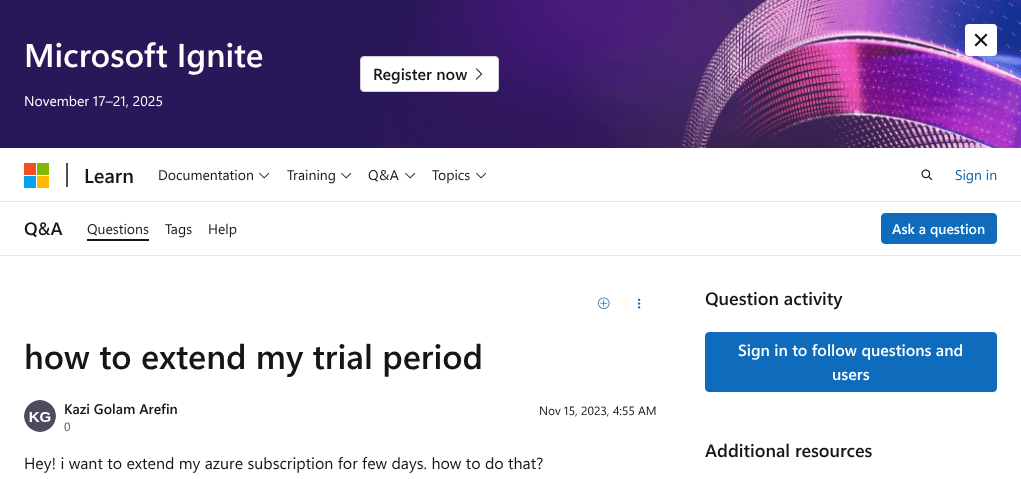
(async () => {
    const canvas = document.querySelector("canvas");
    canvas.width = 1021;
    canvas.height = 479;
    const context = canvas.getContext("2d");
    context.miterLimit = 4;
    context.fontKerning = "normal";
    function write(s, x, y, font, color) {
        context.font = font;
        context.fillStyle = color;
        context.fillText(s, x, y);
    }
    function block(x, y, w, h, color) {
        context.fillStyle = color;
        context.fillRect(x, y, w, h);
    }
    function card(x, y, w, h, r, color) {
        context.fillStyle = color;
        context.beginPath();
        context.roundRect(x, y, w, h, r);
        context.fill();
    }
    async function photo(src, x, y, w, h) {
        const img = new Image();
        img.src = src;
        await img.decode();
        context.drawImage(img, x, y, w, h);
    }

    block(0, 0, 1021, 479, "rgb(255, 255, 255)");
    block(0, 0, 380, 148, "rgb(41, 24, 89)");
    await photo("media/1.png", 380, 0, 641, 148);
    write("Microsoft Ignite", 24, 67, "600 33px Segoe UI", "rgb(255, 255, 255)");
    write("November 17–21, 2025", 24, 106, "14px Segoe UI", "rgb(255, 255, 255)");
    context.beginPath();
    context.roundRect(360.5, 56.5, 138, 35, 3.5);
    context.fill();
    context.strokeStyle = "rgb(209, 209, 209)";
    context.stroke();
    write("Register now", 373, 80, "600 16px Segoe UI", "rgb(22, 22, 22)");
    await photo("media/2.png", 475, 68, 8, 12);
    card(965, 24, 32, 32, 4, "rgb(255, 255, 255)");
    context.fillStyle = "rgb(22, 22, 22)";
    context.beginPath();
    context.moveTo(976, 33.5);
    context.lineTo(987.5, 45);
    context.lineTo(986, 46.5);
    context.lineTo(974.5, 35);
    context.closePath();
    context.fill();
    context.beginPath();
    context.moveTo(986, 33.5);
    context.lineTo(987.5, 35);
    context.lineTo(976, 46.5);
    context.lineTo(974.5, 45);
    context.closePath();
    context.fill();
    block(0, 201, 1021, 1, "rgb(230, 230, 230)");
    block(24, 163, 12, 12, "rgb(242, 80, 34)");
    block(37, 163, 12, 12, "rgb(127, 186, 0)");
    block(24, 176, 12, 12, "rgb(0, 164, 239)");
    block(37, 176, 12, 12, "rgb(255, 185, 0)");
    block(66, 163, 2, 24, "rgb(80, 80, 80)");
    write("Learn", 84, 183, "600 20px Segoe UI", "rgb(22, 22, 22)");
    write("Documentation", 158, 180, "14px Segoe UI", "rgb(22, 22, 22)");
    await photo("media/3.png", 259, 172, 11, 7);
    write("Training", 287, 180, "14px Segoe UI", "rgb(22, 22, 22)");
    await photo("media/3.png", 341, 172, 11, 7);
    write("Q&A", 368, 180, "14px Segoe UI", "rgb(22, 22, 22)");
    await photo("media/3.png", 405, 172, 11, 7);
    write("Topics", 432, 180, "14px Segoe UI", "rgb(22, 22, 22)");
    await photo("media/3.png", 476, 172, 11, 7);
    await photo("media/4.png", 921, 169, 12, 12);
    write("Sign in", 955, 180, "14px Segoe UI", "rgb(0, 101, 179)");
    block(0, 255, 1021, 1, "rgb(230, 230, 230)");
    write("Q&A", 24, 235, "600 18px Segoe UI", "rgb(22, 22, 22)");
    write("Questions", 87, 234, "14px Segoe UI", "rgb(22, 22, 22)");
    block(87, 239, 62, 2, "rgb(22, 22, 22)");
    write("Tags", 165, 234, "14px Segoe UI", "rgb(22, 22, 22)");
    write("Help", 208, 234, "14px Segoe UI", "rgb(22, 22, 22)");
    context.fillStyle = "rgb(15, 108, 189)";
    context.beginPath();
    context.roundRect(881.5, 213.5, 115, 30, 3.5);
    context.fill();
    context.strokeStyle = "rgb(15, 108, 189)";
    context.stroke();
    write("Ask a question", 892, 234, "600 14px Segoe UI", "rgb(255, 255, 255)");
    await photo("media/5.png", 598, 297, 12, 12);
    await photo("media/6.png", 638, 298, 3, 11);
    write("how to extend my trial period", 24, 369, "600 34px Segoe UI", "rgb(22, 22, 22)");
    context.fillStyle = "rgb(242, 242, 242)";
    context.beginPath();
    context.arc(40, 416, 16, 0, Math.PI * 2);
    context.fill();
    await photo("media/7.png", 24, 400, 32, 32);
    write("Kazi Golam Arefin", 64, 414, "600 14px Segoe UI", "rgb(22, 22, 22)");
    write("0", 64, 431, "12px Segoe UI", "rgb(80, 80, 80)");
    write("Nov 15, 2023, 4:55 AM", 539, 415, "12px Segoe UI", "rgb(22, 22, 22)");
    write("Hey! i want to extend my azure subscription for few days. how to do that?", 24, 469, "16px Segoe UI", "rgb(22, 22, 22)");
    write("Question activity", 705, 305, "600 18px Segoe UI", "rgb(22, 22, 22)");
    context.fillStyle = "rgb(15, 108, 189)";
    context.beginPath();
    context.roundRect(705.5, 332.5, 291, 59, 3.5);
    context.fill();
    context.stroke();
    write("Sign in to follow questions and", 738, 356, "600 16px Segoe UI", "rgb(255, 255, 255)");
    write("users", 832, 380, "600 16px Segoe UI", "rgb(255, 255, 255)");
    write("Additional resources", 705, 457, "600 18px Segoe UI", "rgb(22, 22, 22)");
})();
